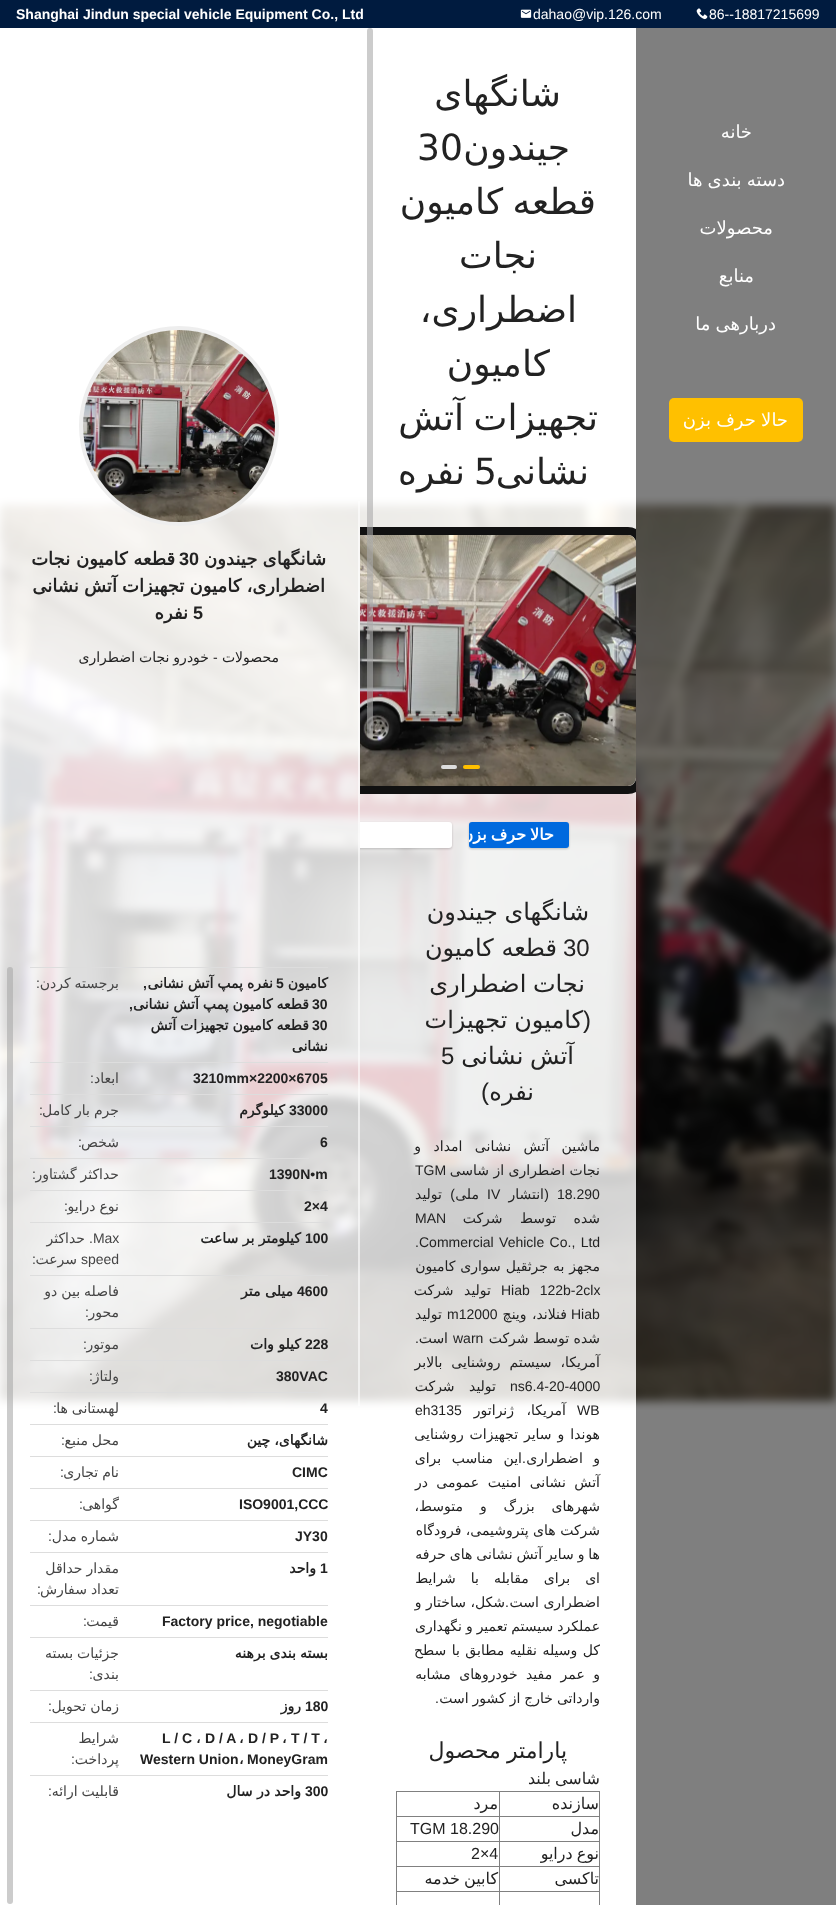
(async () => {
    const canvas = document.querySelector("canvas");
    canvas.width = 836;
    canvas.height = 1905;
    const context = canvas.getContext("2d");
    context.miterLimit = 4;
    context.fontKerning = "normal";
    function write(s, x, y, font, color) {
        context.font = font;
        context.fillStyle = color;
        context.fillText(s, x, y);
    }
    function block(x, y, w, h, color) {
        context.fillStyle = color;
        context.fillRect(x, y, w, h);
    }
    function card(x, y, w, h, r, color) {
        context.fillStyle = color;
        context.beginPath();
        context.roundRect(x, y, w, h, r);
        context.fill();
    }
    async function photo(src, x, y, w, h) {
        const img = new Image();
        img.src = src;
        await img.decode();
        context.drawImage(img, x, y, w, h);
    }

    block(0, 0, 836, 1905, "rgb(255, 255, 255)");
    block(0, 0, 836, 28, "rgb(0, 27, 63)");
    write("86--18817215699", 709, 19, "14px Liberation Sans", "rgb(255, 255, 255)");
    await photo("media/1.png", 696, 8, 12, 12);
    write("dahao@vip.126.com", 533, 19, "14px Liberation Sans", "rgb(255, 255, 255)");
    await photo("media/2.png", 520, 9, 12, 9);
    write("Shanghai Jindun special vehicle Equipment Co., Ltd", 16, 19, "bold 14px Liberation Sans", "rgb(255, 255, 255)");
    await photo("media/4.png", 0, 496, 836, 914);
    block(636, 28, 200, 1877, "rgba(0, 0, 0, 0.5)");
    context.direction = "rtl";
    write("خانه", 752, 138, "18px DejaVu Sans", "rgb(255, 255, 255)");
    context.wordSpacing = "-0.5px";
    write("دسته بندی ها", 785, 186, "18px DejaVu Sans", "rgb(255, 255, 255)");
    context.wordSpacing = "0px";
    write("محصولات", 773, 234, "18px DejaVu Sans", "rgb(255, 255, 255)");
    write("منابع", 754, 282, "18px DejaVu Sans", "rgb(255, 255, 255)");
    context.wordSpacing = "-0.5px";
    write("دربارهی ما", 776, 330, "18px DejaVu Sans", "rgb(255, 255, 255)");
    card(669, 398, 134, 44, 5, "rgb(255, 192, 0)");
    write("حالا حرف بزن", 788, 426, "18px DejaVu Sans", "rgb(255, 255, 255)");
    block(360, 496, 276, 914, "rgba(255, 255, 255, 0.8)");
    context.wordSpacing = "0px";
    write("شانگهای", 561, 106, "36px DejaVu Sans", "rgb(34, 34, 34)");
    write("جیندون", 570, 160, "36px DejaVu Sans", "rgb(34, 34, 34)");
    context.direction = "ltr";
    write("30", 417, 160, "36px DejaVu Sans", "rgb(34, 34, 34)");
    context.wordSpacing = "-2px";
    context.direction = "rtl";
    write("قطعه کامیون", 596, 214, "36px DejaVu Sans", "rgb(34, 34, 34)");
    context.wordSpacing = "0px";
    write("نجات", 537, 268, "36px DejaVu Sans", "rgb(34, 34, 34)");
    write("اضطراری،", 577, 322, "36px DejaVu Sans", "rgb(34, 34, 34)");
    write("کامیون", 550, 376, "36px DejaVu Sans", "rgb(34, 34, 34)");
    context.wordSpacing = "-2px";
    write("تجهیزات آتش", 598, 430, "36px DejaVu Sans", "rgb(34, 34, 34)");
    context.wordSpacing = "0px";
    write("نشانی", 589, 484, "36px DejaVu Sans", "rgb(34, 34, 34)");
    context.direction = "ltr";
    write("5", 474, 484, "36px DejaVu Sans", "rgb(34, 34, 34)");
    context.direction = "rtl";
    write("نفره", 465, 484, "36px DejaVu Sans", "rgb(34, 34, 34)");
    block(0, 496, 360, 914, "rgba(255, 255, 255, 0.8)");
    block(358, 501, 2, 905, "rgba(255, 255, 255, 0.6)");
    context.wordSpacing = "-0.5px";
    write("شانگهای جیندون", 326, 565, "bold 18px DejaVu Sans", "rgb(34, 34, 34)");
    write("اضطراری، کامیون تجهیزات آتش نشانی", 325, 592, "bold 18px DejaVu Sans", "rgb(34, 34, 34)");
    context.wordSpacing = "0px";
    write("محصولات", 279, 662, "14px DejaVu Sans", "rgb(34, 34, 34)");
    context.save();
    context.beginPath();
    context.rect(360, 28, 276, 1877);
    context.clip();
    context.beginPath();
    context.roundRect(281, 531, 359, 259, 12);
    context.strokeStyle = "rgb(17, 17, 17)";
    context.lineWidth = 8;
    context.stroke();
    context.restore();
    await photo("media/3.png", 360, 535, 276, 251);
    card(367, 28, 6, 710, 3, "rgba(170, 170, 170, 0.6)");
    card(463, 765, 17, 4, 2, "rgb(255, 192, 0)");
    card(441, 765, 16, 4, 2, "rgb(221, 221, 221)");
    context.fillStyle = "rgba(0, 0, 0, 0.2)";
    context.filter = "blur(1px)";
    context.beginPath();
    context.roundRect(469, 823, 100, 26, 3);
    context.fill();
    context.filter = "none";
    card(469, 822, 100, 26, 3, "rgb(0, 105, 222)");
    context.save();
    context.beginPath();
    context.roundRect(469, 822, 100, 26, 3);
    context.clip();
    context.wordSpacing = "-1px";
    write("حالا حرف بزن", 554, 840, "bold 16px DejaVu Sans", "rgb(255, 255, 255)");
    context.restore();
    context.save();
    context.beginPath();
    context.rect(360, 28, 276, 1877);
    context.clip();
    context.fillStyle = "rgba(0, 0, 0, 0.2)";
    context.filter = "blur(1px)";
    context.beginPath();
    context.roundRect(352, 823, 100, 26, 3);
    context.fill();
    context.filter = "none";
    context.restore();
    context.fillStyle = "rgb(255, 255, 255)";
    context.beginPath();
    context.roundRect(360, 822, 92, 26, [0, 3, 3, 0]);
    context.fill();
    context.wordSpacing = "-1px";
    write("شانگهای جیندون", 589, 920, "24px DejaVu Sans", "rgb(34, 34, 34)");
    context.wordSpacing = "0px";
    context.direction = "ltr";
    write("30", 563, 956, "24px Liberation Sans", "rgb(34, 34, 34)");
    context.direction = "rtl";
    write("قطعه کامیون", 557, 956, "24px DejaVu Sans", "rgb(34, 34, 34)");
    context.wordSpacing = "-1px";
    write("نجات اضطراری", 585, 992, "24px DejaVu Sans", "rgb(34, 34, 34)");
    context.wordSpacing = "0px";
    write("(", 591, 1028, "24px Liberation Sans", "rgb(34, 34, 34)");
    context.wordSpacing = "-1px";
    write("کامیون تجهیزات", 583, 1028, "24px DejaVu Sans", "rgb(34, 34, 34)");
    write("آتش نشانی", 574, 1064, "24px DejaVu Sans", "rgb(34, 34, 34)");
    context.wordSpacing = "0px";
    context.direction = "ltr";
    write("5", 441, 1064, "24px Liberation Sans", "rgb(34, 34, 34)");
    context.direction = "rtl";
    write("نفره", 534, 1100, "24px DejaVu Sans", "rgb(34, 34, 34)");
    write(")", 489, 1100, "24px Liberation Sans", "rgb(34, 34, 34)");
    context.wordSpacing = "8px";
    write("ماشین آتش نشانی امداد و", 600, 1151, "14px DejaVu Sans", "rgb(34, 34, 34)");
    context.wordSpacing = "0px";
    write("نجات اضطراری از شاسی", 600, 1175, "14px DejaVu Sans", "rgb(34, 34, 34)");
    context.direction = "ltr";
    write("TGM", 415, 1175, "14px Liberation Sans", "rgb(34, 34, 34)");
    write("18.290", 557, 1199, "14px Liberation Sans", "rgb(34, 34, 34)");
    context.direction = "rtl";
    write("(", 549, 1199, "14px Liberation Sans", "rgb(34, 34, 34)");
    write("انتشار", 544, 1199, "14px DejaVu Sans", "rgb(34, 34, 34)");
    context.direction = "ltr";
    write("IV", 487, 1199, "14px Liberation Sans", "rgb(34, 34, 34)");
    context.direction = "rtl";
    write("ملی", 479, 1199, "14px DejaVu Sans", "rgb(34, 34, 34)");
    write(")", 455, 1199, "14px Liberation Sans", "rgb(34, 34, 34)");
    write("تولید", 442, 1199, "14px DejaVu Sans", "rgb(34, 34, 34)");
    context.wordSpacing = "13px";
    write("شده توسط شرکت", 600, 1223, "14px DejaVu Sans", "rgb(34, 34, 34)");
    context.wordSpacing = "0px";
    context.direction = "ltr";
    write("MAN", 415, 1223, "14px Liberation Sans", "rgb(34, 34, 34)");
    context.wordSpacing = "1.5px";
    write("Commercial Vehicle Co., Ltd", 419, 1247, "14px Liberation Sans", "rgb(34, 34, 34)");
    context.wordSpacing = "0px";
    write(".", 415, 1247, "14px Liberation Sans", "rgb(34, 34, 34)");
    context.wordSpacing = "0.5px";
    context.direction = "rtl";
    write("مجهز به جرثقیل سواری کامیون", 600, 1271, "14px DejaVu Sans", "rgb(34, 34, 34)");
    context.wordSpacing = "6px";
    context.direction = "ltr";
    write("Hiab 122b-2clx", 501, 1295, "14px Liberation Sans", "rgb(34, 34, 34)");
    context.direction = "rtl";
    write("تولید شرکت", 491, 1295, "14px DejaVu Sans", "rgb(34, 34, 34)");
    context.wordSpacing = "0px";
    context.direction = "ltr";
    write("Hiab", 571, 1319, "14px Liberation Sans", "rgb(34, 34, 34)");
    context.wordSpacing = "1px";
    context.direction = "rtl";
    write("فنلاند، وینچ", 567, 1319, "14px DejaVu Sans", "rgb(34, 34, 34)");
    context.wordSpacing = "0px";
    context.direction = "ltr";
    write("m12000", 447, 1319, "14px Liberation Sans", "rgb(34, 34, 34)");
    context.direction = "rtl";
    write("تولید", 442, 1319, "14px DejaVu Sans", "rgb(34, 34, 34)");
    write("شده توسط شرکت", 600, 1343, "14px DejaVu Sans", "rgb(34, 34, 34)");
    context.direction = "ltr";
    write("warn", 453, 1343, "14px Liberation Sans", "rgb(34, 34, 34)");
    context.direction = "rtl";
    write("است", 448, 1343, "14px DejaVu Sans", "rgb(34, 34, 34)");
    write(".", 419, 1343, "14px Liberation Sans", "rgb(34, 34, 34)");
    context.wordSpacing = "4.5px";
    write("آمریکا، سیستم روشنایی بالابر", 600, 1367, "14px DejaVu Sans", "rgb(34, 34, 34)");
    context.wordSpacing = "0px";
    context.direction = "ltr";
    write("ns6.4-20-4000", 510, 1391, "14px Liberation Sans", "rgb(34, 34, 34)");
    context.wordSpacing = "10px";
    context.direction = "rtl";
    write("تولید شرکت", 496, 1391, "14px DejaVu Sans", "rgb(34, 34, 34)");
    context.wordSpacing = "0px";
    context.direction = "ltr";
    write("WB", 577, 1415, "14px Liberation Sans", "rgb(34, 34, 34)");
    context.wordSpacing = "8px";
    context.direction = "rtl";
    write("آمریکا، ژنراتور", 566, 1415, "14px DejaVu Sans", "rgb(34, 34, 34)");
    context.wordSpacing = "0px";
    context.direction = "ltr";
    write("eh3135", 415, 1415, "14px Liberation Sans", "rgb(34, 34, 34)");
    context.wordSpacing = "1.5px";
    context.direction = "rtl";
    write("هوندا و سایر تجهیزات روشنایی", 600, 1439, "14px DejaVu Sans", "rgb(34, 34, 34)");
    context.wordSpacing = "6px";
    write("و اضطراری", 600, 1463, "14px DejaVu Sans", "rgb(34, 34, 34)");
    context.wordSpacing = "0px";
    write(".", 526, 1463, "14px Liberation Sans", "rgb(34, 34, 34)");
    context.wordSpacing = "6px";
    write("این مناسب برای", 522, 1463, "14px DejaVu Sans", "rgb(34, 34, 34)");
    context.wordSpacing = "4px";
    write("آتش نشانی امنیت عمومی در", 600, 1487, "14px DejaVu Sans", "rgb(34, 34, 34)");
    context.wordSpacing = "12.5px";
    write("شهرهای بزرگ و متوسط،", 600, 1511, "14px DejaVu Sans", "rgb(34, 34, 34)");
    context.wordSpacing = "0px";
    write("شرکت های پتروشیمی، فرودگاه", 600, 1535, "14px DejaVu Sans", "rgb(34, 34, 34)");
    context.wordSpacing = "-0.5px";
    write("ها و سایر آتش نشانی های حرفه", 600, 1559, "14px DejaVu Sans", "rgb(34, 34, 34)");
    context.wordSpacing = "10.5px";
    write("ای برای مقابله با شرایط", 600, 1583, "14px DejaVu Sans", "rgb(34, 34, 34)");
    context.wordSpacing = "0px";
    write("اضطراری است", 600, 1607, "14px DejaVu Sans", "rgb(34, 34, 34)");
    write(".", 509, 1607, "14px Liberation Sans", "rgb(34, 34, 34)");
    write("شکل، ساختار و", 505, 1607, "14px DejaVu Sans", "rgb(34, 34, 34)");
    context.wordSpacing = "-0.5px";
    write("عملکرد سیستم تعمیر و نگهداری", 600, 1631, "14px DejaVu Sans", "rgb(34, 34, 34)");
    context.wordSpacing = "1px";
    write("کل وسیله نقلیه مطابق با سطح", 600, 1655, "14px DejaVu Sans", "rgb(34, 34, 34)");
    context.wordSpacing = "4px";
    write("و عمر مفید خودروهای مشابه", 600, 1679, "14px DejaVu Sans", "rgb(34, 34, 34)");
    context.wordSpacing = "-0.5px";
    write("وارداتی خارج از کشور است", 600, 1703, "14px DejaVu Sans", "rgb(34, 34, 34)");
    context.wordSpacing = "0px";
    write(".", 439, 1703, "14px Liberation Sans", "rgb(34, 34, 34)");
    context.wordSpacing = "-1px";
    write("پارامتر محصول", 567, 1758, "22px DejaVu Sans", "rgb(34, 34, 34)");
    write("شاسی بلند", 600, 1784, "16px DejaVu Sans", "rgb(34, 34, 34)");
    block(396, 1791, 204, 1, "rgb(128, 128, 128)");
    block(599, 1791, 1, 114, "rgb(128, 128, 128)");
    block(396, 1791, 1, 114, "rgb(128, 128, 128)");
    context.wordSpacing = "0px";
    write("سازنده", 599, 1809, "16px DejaVu Sans", "rgb(34, 34, 34)");
    block(396, 1816, 104, 1, "rgb(128, 128, 128)");
    block(396, 1841, 104, 1, "rgb(128, 128, 128)");
    block(396, 1866, 104, 1, "rgb(128, 128, 128)");
    block(396, 1891, 104, 1, "rgb(128, 128, 128)");
    block(499, 1891, 1, 14, "rgb(128, 128, 128)");
    block(499, 1891, 101, 1, "rgb(128, 128, 128)");
    block(499, 1866, 1, 26, "rgb(128, 128, 128)");
    block(499, 1866, 101, 1, "rgb(128, 128, 128)");
    block(499, 1841, 1, 26, "rgb(128, 128, 128)");
    block(499, 1841, 101, 1, "rgb(128, 128, 128)");
    block(499, 1816, 1, 26, "rgb(128, 128, 128)");
    block(499, 1816, 101, 1, "rgb(128, 128, 128)");
    block(499, 1791, 1, 26, "rgb(128, 128, 128)");
    write("مرد", 498, 1809, "16px DejaVu Sans", "rgb(34, 34, 34)");
    write("مدل", 599, 1834, "16px DejaVu Sans", "rgb(34, 34, 34)");
    context.direction = "ltr";
    write("TGM 18.290", 410, 1834, "16px Liberation Sans", "rgb(34, 34, 34)");
    context.wordSpacing = "-1px";
    context.direction = "rtl";
    write("نوع درایو", 599, 1859, "16px DejaVu Sans", "rgb(34, 34, 34)");
    context.wordSpacing = "0px";
    context.direction = "ltr";
    write("2×4", 471, 1859, "16px Liberation Sans", "rgb(34, 34, 34)");
    context.direction = "rtl";
    write("تاکسی", 599, 1884, "16px DejaVu Sans", "rgb(34, 34, 34)");
    context.wordSpacing = "-1px";
    write("کابین خدمه", 498, 1884, "16px DejaVu Sans", "rgb(34, 34, 34)");
    context.beginPath();
    context.arc(179, 426, 98, 0, Math.PI * 2);
    context.strokeStyle = "rgb(238, 238, 238)";
    context.lineWidth = 4;
    context.stroke();
    await photo("media/5.png", 83, 330, 192, 192);
    context.wordSpacing = "0px";
    context.direction = "ltr";
    write("30", 179, 565, "bold 18px Liberation Sans", "rgb(34, 34, 34)");
    context.direction = "rtl";
    write("قطعه کامیون نجات", 175, 565, "bold 18px DejaVu Sans", "rgb(34, 34, 34)");
    context.direction = "ltr";
    write("5", 193, 619, "bold 18px Liberation Sans", "rgb(34, 34, 34)");
    context.direction = "rtl";
    write("نفره", 188, 619, "bold 18px DejaVu Sans", "rgb(34, 34, 34)");
    context.direction = "ltr";
    write("-", 213, 662, "14px Liberation Sans", "rgb(34, 34, 34)");
    context.wordSpacing = "-0.5px";
    context.direction = "rtl";
    write("خودرو نجات اضطراری", 209, 662, "14px DejaVu Sans", "rgb(34, 34, 34)");
    block(30, 967, 298, 1, "rgb(221, 221, 221)");
    context.wordSpacing = "0px";
    write("کامیون", 328, 988, "bold 14px DejaVu Sans", "rgb(34, 34, 34)");
    context.direction = "ltr";
    write("5", 276, 988, "bold 14px Liberation Sans", "rgb(34, 34, 34)");
    context.wordSpacing = "-0.5px";
    context.direction = "rtl";
    write("نفره پمپ آتش نشانی", 273, 988, "bold 14px DejaVu Sans", "rgb(34, 34, 34)");
    context.wordSpacing = "0px";
    context.direction = "ltr";
    write(",", 143, 988, "bold 14px Liberation Sans", "rgb(34, 34, 34)");
    write("30", 312, 1009, "bold 14px Liberation Sans", "rgb(34, 34, 34)");
    context.wordSpacing = "-0.5px";
    context.direction = "rtl";
    write("قطعه کامیون پمپ آتش نشانی", 309, 1009, "bold 14px DejaVu Sans", "rgb(34, 34, 34)");
    context.wordSpacing = "0px";
    context.direction = "ltr";
    write(",", 129, 1009, "bold 14px Liberation Sans", "rgb(34, 34, 34)");
    write("30", 312, 1030, "bold 14px Liberation Sans", "rgb(34, 34, 34)");
    context.wordSpacing = "-0.5px";
    context.direction = "rtl";
    write("قطعه کامیون تجهیزات آتش", 309, 1030, "bold 14px DejaVu Sans", "rgb(34, 34, 34)");
    context.wordSpacing = "0px";
    write("نشانی", 328, 1051, "bold 14px DejaVu Sans", "rgb(34, 34, 34)");
    context.wordSpacing = "-0.5px";
    write("برجسته کردن", 119, 988, "14px DejaVu Sans", "rgb(68, 68, 68)");
    context.wordSpacing = "0px";
    context.direction = "ltr";
    write(":", 36, 988, "14px Liberation Sans", "rgb(68, 68, 68)");
    block(30, 1062, 298, 1, "rgb(221, 221, 221)");
    write("3210mm×2200×6705", 193, 1083, "bold 14px Liberation Sans", "rgb(34, 34, 34)");
    context.direction = "rtl";
    write("ابعاد", 119, 1083, "14px DejaVu Sans", "rgb(68, 68, 68)");
    context.direction = "ltr";
    write(":", 90, 1083, "14px Liberation Sans", "rgb(68, 68, 68)");
    block(30, 1094, 298, 1, "rgb(221, 221, 221)");
    write("33000", 289, 1115, "bold 14px Liberation Sans", "rgb(34, 34, 34)");
    context.direction = "rtl";
    write("کیلوگرم", 285, 1115, "bold 14px DejaVu Sans", "rgb(34, 34, 34)");
    context.wordSpacing = "-0.5px";
    write("جرم بار کامل", 119, 1115, "14px DejaVu Sans", "rgb(68, 68, 68)");
    context.wordSpacing = "0px";
    context.direction = "ltr";
    write(":", 39, 1115, "14px Liberation Sans", "rgb(68, 68, 68)");
    block(30, 1126, 298, 1, "rgb(221, 221, 221)");
    write("6", 320, 1147, "bold 14px Liberation Sans", "rgb(34, 34, 34)");
    context.direction = "rtl";
    write("شخص", 119, 1147, "14px DejaVu Sans", "rgb(68, 68, 68)");
    context.direction = "ltr";
    write(":", 78, 1147, "14px Liberation Sans", "rgb(68, 68, 68)");
    block(30, 1158, 279, 1, "rgb(221, 221, 221)");
    write("1390N•m", 269, 1179, "bold 14px Liberation Sans", "rgb(34, 34, 34)");
    context.wordSpacing = "-0.5px";
    context.direction = "rtl";
    write("حداکثر گشتاور", 119, 1179, "14px DejaVu Sans", "rgb(68, 68, 68)");
    context.wordSpacing = "0px";
    context.direction = "ltr";
    write(":", 32, 1179, "14px Liberation Sans", "rgb(68, 68, 68)");
    block(30, 1190, 298, 1, "rgb(221, 221, 221)");
    write("2×4", 304, 1211, "bold 14px Liberation Sans", "rgb(34, 34, 34)");
    context.wordSpacing = "-0.5px";
    context.direction = "rtl";
    write("نوع درایو", 119, 1211, "14px DejaVu Sans", "rgb(68, 68, 68)");
    context.wordSpacing = "0px";
    context.direction = "ltr";
    write(":", 64, 1211, "14px Liberation Sans", "rgb(68, 68, 68)");
    block(30, 1222, 298, 1, "rgb(221, 221, 221)");
    write("100", 305, 1243, "bold 14px Liberation Sans", "rgb(34, 34, 34)");
    context.direction = "rtl";
    write("کیلومتر بر ساعت", 301, 1243, "bold 14px DejaVu Sans", "rgb(34, 34, 34)");
    context.direction = "ltr";
    write(".Max", 89, 1243, "14px Liberation Sans", "rgb(68, 68, 68)");
    context.direction = "rtl";
    write("حداکثر", 85, 1243, "14px DejaVu Sans", "rgb(68, 68, 68)");
    context.direction = "ltr";
    write("speed", 81, 1264, "14px Liberation Sans", "rgb(68, 68, 68)");
    context.direction = "rtl";
    write("سرعت", 77, 1264, "14px DejaVu Sans", "rgb(68, 68, 68)");
    context.direction = "ltr";
    write(":", 32, 1264, "14px Liberation Sans", "rgb(68, 68, 68)");
    block(30, 1275, 298, 1, "rgb(221, 221, 221)");
    write("4600", 297, 1296, "bold 14px Liberation Sans", "rgb(34, 34, 34)");
    context.direction = "rtl";
    write("میلی متر", 293, 1296, "bold 14px DejaVu Sans", "rgb(34, 34, 34)");
    context.wordSpacing = "-0.5px";
    write("فاصله بین دو", 119, 1296, "14px DejaVu Sans", "rgb(68, 68, 68)");
    context.wordSpacing = "0px";
    write("محور", 119, 1317, "14px DejaVu Sans", "rgb(68, 68, 68)");
    context.direction = "ltr";
    write(":", 85, 1317, "14px Liberation Sans", "rgb(68, 68, 68)");
    block(30, 1328, 298, 1, "rgb(221, 221, 221)");
    write("228", 305, 1349, "bold 14px Liberation Sans", "rgb(34, 34, 34)");
    context.direction = "rtl";
    write("کیلو وات", 301, 1349, "bold 14px DejaVu Sans", "rgb(34, 34, 34)");
    write("موتور", 119, 1349, "14px DejaVu Sans", "rgb(68, 68, 68)");
    context.direction = "ltr";
    write(":", 83, 1349, "14px Liberation Sans", "rgb(68, 68, 68)");
    block(30, 1360, 298, 1, "rgb(221, 221, 221)");
    write("380VAC", 276, 1381, "bold 14px Liberation Sans", "rgb(34, 34, 34)");
    context.direction = "rtl";
    write("ولتاژ", 119, 1381, "14px DejaVu Sans", "rgb(68, 68, 68)");
    context.direction = "ltr";
    write(":", 89, 1381, "14px Liberation Sans", "rgb(68, 68, 68)");
    block(30, 1392, 288, 1, "rgb(221, 221, 221)");
    write("4", 320, 1413, "bold 14px Liberation Sans", "rgb(34, 34, 34)");
    context.wordSpacing = "-0.5px";
    context.direction = "rtl";
    write("لهستانی ها", 119, 1413, "14px DejaVu Sans", "rgb(68, 68, 68)");
    context.wordSpacing = "0px";
    context.direction = "ltr";
    write(":", 53, 1413, "14px Liberation Sans", "rgb(68, 68, 68)");
    block(30, 1424, 298, 1, "rgb(221, 221, 221)");
    context.wordSpacing = "-0.5px";
    context.direction = "rtl";
    write("شانگهای، چین", 328, 1445, "bold 14px DejaVu Sans", "rgb(34, 34, 34)");
    write("محل منبع", 119, 1445, "14px DejaVu Sans", "rgb(68, 68, 68)");
    context.wordSpacing = "0px";
    context.direction = "ltr";
    write(":", 61, 1445, "14px Liberation Sans", "rgb(68, 68, 68)");
    block(30, 1456, 298, 1, "rgb(221, 221, 221)");
    write("CIMC", 292, 1477, "bold 14px Liberation Sans", "rgb(34, 34, 34)");
    context.wordSpacing = "-0.5px";
    context.direction = "rtl";
    write("نام تجاری", 119, 1477, "14px DejaVu Sans", "rgb(68, 68, 68)");
    context.wordSpacing = "0px";
    context.direction = "ltr";
    write(":", 60, 1477, "14px Liberation Sans", "rgb(68, 68, 68)");
    block(30, 1488, 298, 1, "rgb(221, 221, 221)");
    write("ISO9001,CCC", 239, 1509, "bold 14px Liberation Sans", "rgb(34, 34, 34)");
    context.direction = "rtl";
    write("گواهی", 119, 1509, "14px DejaVu Sans", "rgb(68, 68, 68)");
    context.direction = "ltr";
    write(":", 79, 1509, "14px Liberation Sans", "rgb(68, 68, 68)");
    block(30, 1520, 298, 1, "rgb(221, 221, 221)");
    write("JY30", 295, 1541, "bold 14px Liberation Sans", "rgb(34, 34, 34)");
    context.wordSpacing = "-0.5px";
    context.direction = "rtl";
    write("شماره مدل", 119, 1541, "14px DejaVu Sans", "rgb(68, 68, 68)");
    context.wordSpacing = "0px";
    context.direction = "ltr";
    write(":", 48, 1541, "14px Liberation Sans", "rgb(68, 68, 68)");
    block(30, 1552, 298, 1, "rgb(221, 221, 221)");
    write("1", 320, 1573, "bold 14px Liberation Sans", "rgb(34, 34, 34)");
    context.direction = "rtl";
    write("واحد", 316, 1573, "bold 14px DejaVu Sans", "rgb(34, 34, 34)");
    context.wordSpacing = "-0.5px";
    write("مقدار حداقل", 119, 1573, "14px DejaVu Sans", "rgb(68, 68, 68)");
    write("تعداد سفارش", 119, 1594, "14px DejaVu Sans", "rgb(68, 68, 68)");
    context.wordSpacing = "0px";
    context.direction = "ltr";
    write(":", 37, 1594, "14px Liberation Sans", "rgb(68, 68, 68)");
    block(30, 1605, 298, 1, "rgb(221, 221, 221)");
    write("Factory price, negotiable", 162, 1626, "bold 14px Liberation Sans", "rgb(34, 34, 34)");
    context.direction = "rtl";
    write("قیمت", 119, 1626, "14px DejaVu Sans", "rgb(68, 68, 68)");
    context.direction = "ltr";
    write(":", 83, 1626, "14px Liberation Sans", "rgb(68, 68, 68)");
    block(30, 1637, 298, 1, "rgb(221, 221, 221)");
    context.wordSpacing = "-0.5px";
    context.direction = "rtl";
    write("بسته بندی برهنه", 328, 1658, "bold 14px DejaVu Sans", "rgb(34, 34, 34)");
    write("جزئیات بسته", 119, 1658, "14px DejaVu Sans", "rgb(68, 68, 68)");
    context.wordSpacing = "0px";
    write("بندی", 119, 1679, "14px DejaVu Sans", "rgb(68, 68, 68)");
    context.direction = "ltr";
    write(":", 89, 1679, "14px Liberation Sans", "rgb(68, 68, 68)");
    block(30, 1690, 298, 1, "rgb(221, 221, 221)");
    write("180", 305, 1711, "bold 14px Liberation Sans", "rgb(34, 34, 34)");
    context.direction = "rtl";
    write("روز", 301, 1711, "bold 14px DejaVu Sans", "rgb(34, 34, 34)");
    context.wordSpacing = "-0.5px";
    write("زمان تحویل", 119, 1711, "14px DejaVu Sans", "rgb(68, 68, 68)");
    context.wordSpacing = "0px";
    context.direction = "ltr";
    write(":", 48, 1711, "14px Liberation Sans", "rgb(68, 68, 68)");
    block(30, 1722, 298, 1, "rgb(221, 221, 221)");
    write("،", 323, 1743, "bold 14px DejaVu Sans", "rgb(34, 34, 34)");
    write("T / T", 291, 1743, "bold 14px Liberation Sans", "rgb(34, 34, 34)");
    write("،", 282, 1743, "bold 14px DejaVu Sans", "rgb(34, 34, 34)");
    write("D / P", 248, 1743, "bold 14px Liberation Sans", "rgb(34, 34, 34)");
    write("،", 239, 1743, "bold 14px DejaVu Sans", "rgb(34, 34, 34)");
    write("D / A", 205, 1743, "bold 14px Liberation Sans", "rgb(34, 34, 34)");
    write("،", 196, 1743, "bold 14px DejaVu Sans", "rgb(34, 34, 34)");
    write("L / C", 162, 1743, "bold 14px Liberation Sans", "rgb(34, 34, 34)");
    write("MoneyGram", 247, 1764, "bold 14px Liberation Sans", "rgb(34, 34, 34)");
    write("،", 239, 1764, "bold 14px DejaVu Sans", "rgb(34, 34, 34)");
    write("Western Union", 140, 1764, "bold 14px Liberation Sans", "rgb(34, 34, 34)");
    context.direction = "rtl";
    write("شرایط", 119, 1743, "14px DejaVu Sans", "rgb(68, 68, 68)");
    write("پرداخت", 119, 1764, "14px DejaVu Sans", "rgb(68, 68, 68)");
    context.direction = "ltr";
    write(":", 71, 1764, "14px Liberation Sans", "rgb(68, 68, 68)");
    block(30, 1775, 298, 1, "rgb(221, 221, 221)");
    write("300", 305, 1796, "bold 14px Liberation Sans", "rgb(34, 34, 34)");
    context.direction = "rtl";
    write("واحد در سال", 301, 1796, "bold 14px DejaVu Sans", "rgb(34, 34, 34)");
    context.wordSpacing = "-0.5px";
    write("قابلیت ارائه", 119, 1796, "14px DejaVu Sans", "rgb(68, 68, 68)");
    context.wordSpacing = "0px";
    context.direction = "ltr";
    write(":", 48, 1796, "14px Liberation Sans", "rgb(68, 68, 68)");
    card(7, 967, 6, 937, 3, "rgba(170, 170, 170, 0.6)");
})();
